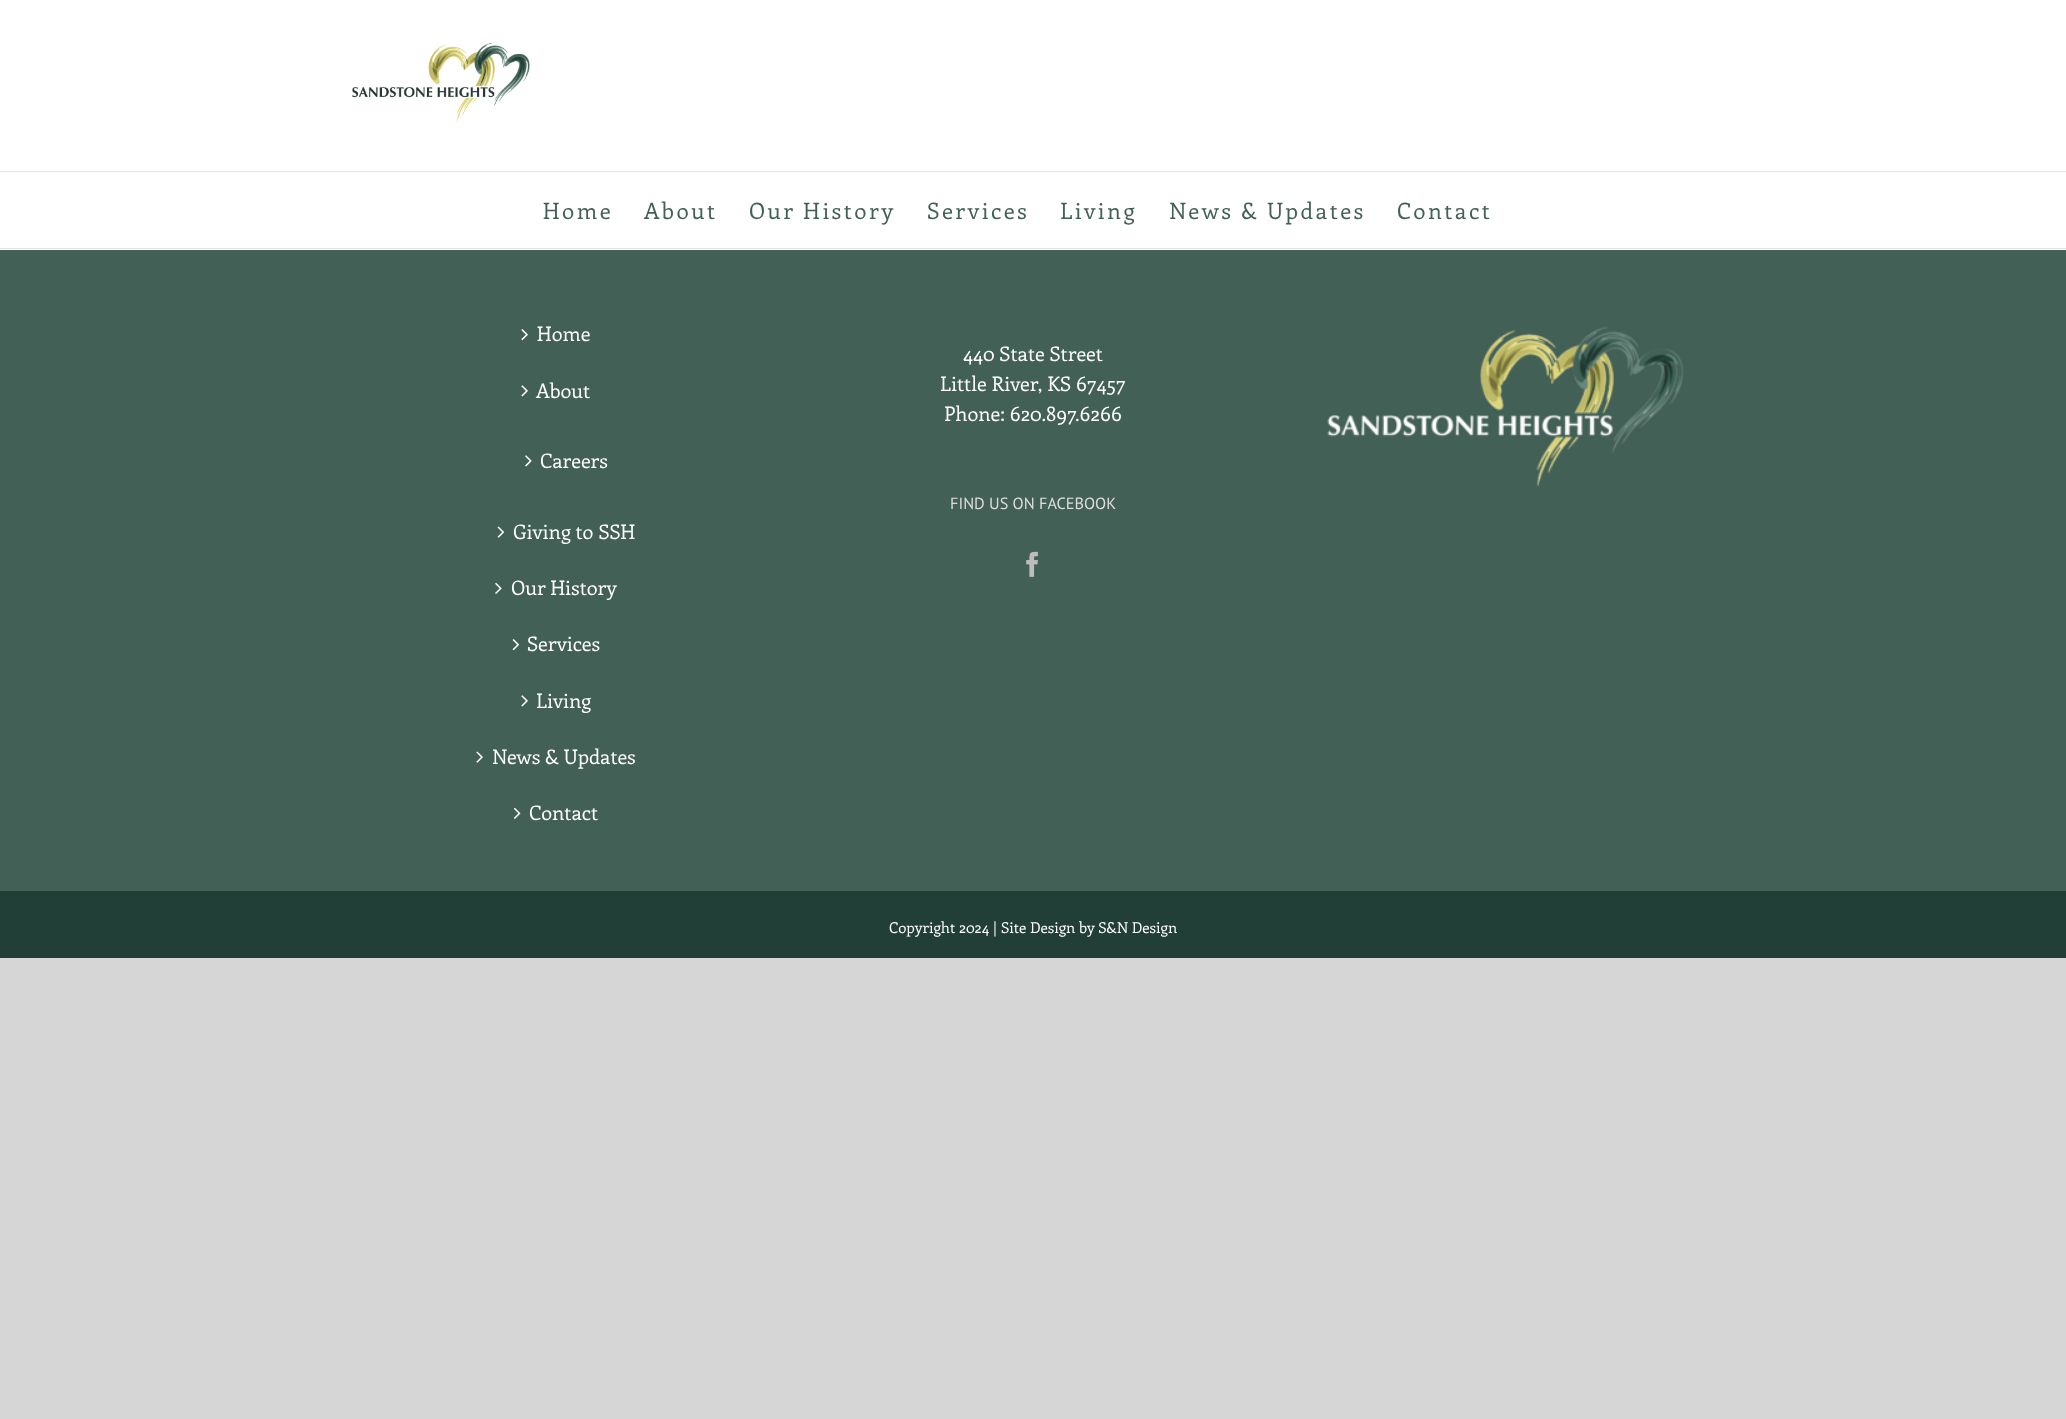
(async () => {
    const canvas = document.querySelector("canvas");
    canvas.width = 2066;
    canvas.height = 1419;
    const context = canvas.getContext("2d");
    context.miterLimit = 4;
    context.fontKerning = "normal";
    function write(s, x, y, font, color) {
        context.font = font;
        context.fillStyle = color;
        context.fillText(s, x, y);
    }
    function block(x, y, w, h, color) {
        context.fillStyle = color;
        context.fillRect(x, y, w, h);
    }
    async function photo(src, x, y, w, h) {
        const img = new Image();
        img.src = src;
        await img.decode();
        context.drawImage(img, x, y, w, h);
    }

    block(0, 0, 2066, 1419, "rgb(215, 214, 214)");
    block(0, 0, 2066, 250, "rgb(255, 255, 255)");
    block(0, 171, 2066, 1, "rgb(229, 229, 229)");
    await photo("media/1.png", 351, 42, 179, 87);
    block(0, 248, 2066, 1, "rgb(229, 229, 229)");
    context.letterSpacing = "2.5px";
    write("Home", 543, 219, "22.5px Enriqueta", "rgb(67, 96, 87)");
    write("About", 644, 219, "22.5px Enriqueta", "rgb(67, 96, 87)");
    write("Our History", 749, 219, "22.5px Enriqueta", "rgb(67, 96, 87)");
    write("Services", 927, 219, "22.5px Enriqueta", "rgb(67, 96, 87)");
    write("Living", 1060, 219, "22.5px Enriqueta", "rgb(67, 96, 87)");
    write("News & Updates", 1169, 219, "22.5px Enriqueta", "rgb(67, 96, 87)");
    write("Contact", 1397, 219, "22.5px Enriqueta", "rgb(67, 96, 87)");
    block(0, 250, 2066, 641, "rgb(67, 96, 87)");
    await photo("media/2.png", 521, 329, 7, 12);
    context.letterSpacing = "0px";
    write("Home", 537, 341, "20px Enriqueta", "rgb(255, 255, 255)");
    await photo("media/3.png", 521, 385, 7, 12);
    write("About", 536, 398, "20px Enriqueta", "rgb(255, 255, 255)");
    await photo("media/4.png", 525, 455, 7, 12);
    write("Careers", 540, 468, "20px Enriqueta", "rgb(255, 255, 255)");
    await photo("media/5.png", 497, 526, 8, 12);
    write("Giving to SSH", 513, 539, "20px Enriqueta", "rgb(255, 255, 255)");
    await photo("media/6.png", 495, 582, 7, 12);
    write("Our History", 511, 595, "20px Enriqueta", "rgb(255, 255, 255)");
    await photo("media/7.png", 512, 639, 8, 12);
    write("Services", 527, 651, "20px Enriqueta", "rgb(255, 255, 255)");
    await photo("media/3.png", 521, 695, 7, 12);
    write("Living", 536, 708, "20px Enriqueta", "rgb(255, 255, 255)");
    await photo("media/8.png", 476, 751, 7, 12);
    write("News & Updates", 492, 764, "20px Enriqueta", "rgb(255, 255, 255)");
    await photo("media/9.png", 513, 807, 8, 12);
    write("Contact", 529, 820, "20px Enriqueta", "rgb(255, 255, 255)");
    write("440 State Street", 963, 361, "20px Enriqueta", "rgb(255, 255, 255)");
    write("Little River, KS 67457", 940, 391, "20px Enriqueta", "rgb(255, 255, 255)");
    write("Phone: 620.897.6266", 944, 421, "20px Enriqueta", "rgb(255, 255, 255)");
    write("FIND US ON FACEBOOK", 950, 509, "16.25px PT Sans", "rgb(221, 221, 221)");
    await photo("media/10.png", 1026, 551, 12, 26);
    await photo("media/11.png", 1327, 326, 357, 161);
    block(0, 891, 2066, 67, "rgb(33, 63, 54)");
    write("Copyright 2024 | Site Design by S&N Design", 889, 933, "15px Enriqueta", "rgb(255, 255, 255)");
})();
